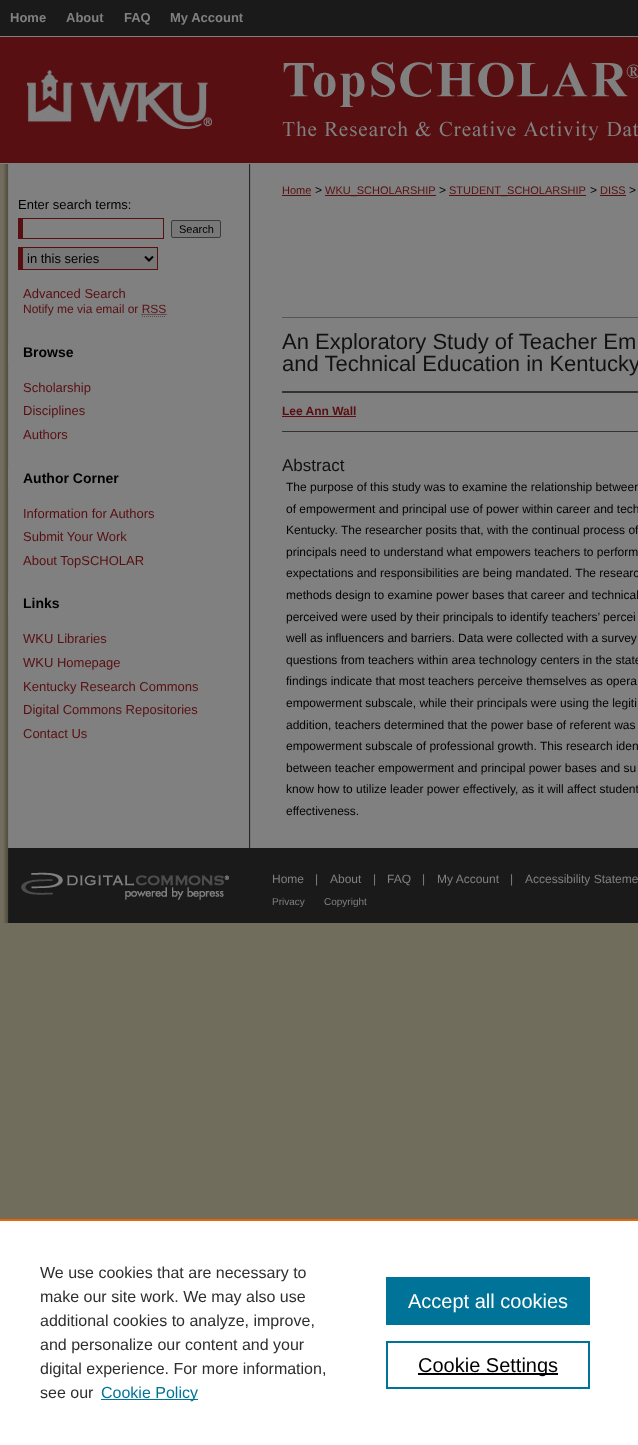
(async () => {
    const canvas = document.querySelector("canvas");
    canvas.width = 638;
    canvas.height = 1445;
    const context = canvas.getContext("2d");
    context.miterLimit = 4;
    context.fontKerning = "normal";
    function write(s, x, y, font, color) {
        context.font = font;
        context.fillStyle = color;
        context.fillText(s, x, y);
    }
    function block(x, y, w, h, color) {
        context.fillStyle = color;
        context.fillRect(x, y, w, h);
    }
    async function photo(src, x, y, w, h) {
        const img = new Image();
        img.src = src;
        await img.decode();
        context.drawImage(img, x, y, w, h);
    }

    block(0, 0, 638, 1445, "rgb(113, 109, 92)");
    block(0, 37, 638, 126, "rgb(88, 15, 18)");
    block(0, 0, 638, 36, "rgb(26, 26, 26)");
    block(0, 36, 638, 1, "rgb(128, 128, 128)");
    write("Home", 10, 22, "bold 13px Liberation Sans", "rgb(128, 128, 128)");
    write("About", 66, 22, "bold 13px Liberation Sans", "rgb(128, 128, 128)");
    write("FAQ", 124, 22, "bold 13px Liberation Sans", "rgb(128, 128, 128)");
    write("My Account", 170, 22, "bold 13px Liberation Sans", "rgb(128, 128, 128)");
    await photo("media/1.png", 27, 70, 185, 59);
    await photo("media/2.png", 282, 62, 356, 79);
    block(251, 164, 387, 684, "rgb(128, 128, 128)");
    await photo("media/3.png", 0, 164, 251, 684);
    block(0, 163, 638, 1, "rgb(128, 128, 128)");
    write("Enter search terms:", 18, 209, "13px Liberation Sans", "rgb(0, 0, 0)");
    block(18, 218, 146, 1, "rgb(88, 15, 18)");
    block(163, 218, 1, 21, "rgb(88, 15, 18)");
    block(18, 238, 146, 1, "rgb(88, 15, 18)");
    block(18, 218, 5, 21, "rgb(88, 15, 18)");
    context.fillStyle = "rgb(120, 120, 120)";
    context.beginPath();
    context.roundRect(171.5, 220.5, 49, 17, 1.5);
    context.fill();
    context.strokeStyle = "rgb(59, 59, 59)";
    context.stroke();
    write("Search", 179, 233, "11px Liberation Sans", "rgb(0, 0, 0)");
    block(23, 248, 134, 21, "rgb(120, 120, 120)");
    block(18, 247, 140, 1, "rgb(88, 15, 18)");
    block(157, 247, 1, 23, "rgb(88, 15, 18)");
    block(18, 269, 140, 1, "rgb(88, 15, 18)");
    block(18, 247, 5, 23, "rgb(88, 15, 18)");
    context.beginPath();
    context.moveTo(145, 256.5);
    context.lineTo(149, 260.5);
    context.lineTo(153, 256.5);
    context.strokeStyle = "rgb(0, 0, 0)";
    context.lineWidth = 2;
    context.stroke();
    write("in this series", 27, 263, "13px Liberation Sans", "rgb(0, 0, 0)");
    write("Advanced Search", 23, 298, "13px Liberation Sans", "rgb(88, 15, 18)");
    write("Notify me via email or RSS", 23, 313, "12px Liberation Sans", "rgb(88, 15, 18)");
    context.beginPath();
    context.moveTo(141.5, 314.5);
    context.lineTo(166.5, 314.5);
    context.strokeStyle = "rgb(88, 15, 18)";
    context.lineWidth = 1;
    context.setLineDash([1, 1]);
    context.stroke();
    context.beginPath();
    context.moveTo(142, 316.5);
    context.lineTo(166, 316.5);
    context.strokeStyle = "rgb(77, 77, 77)";
    context.stroke();
    block(8, 342, 1, 21, "rgb(128, 128, 128)");
    write("Browse", 23, 357, "bold 14px Liberation Sans", "rgb(0, 0, 0)");
    write("Scholarship", 23, 392, "13px Liberation Sans", "rgb(88, 15, 18)");
    write("Disciplines", 23, 415, "13px Liberation Sans", "rgb(88, 15, 18)");
    write("Authors", 23, 439, "13px Liberation Sans", "rgb(88, 15, 18)");
    block(8, 468, 1, 21, "rgb(128, 128, 128)");
    write("Author Corner", 23, 483, "bold 14px Liberation Sans", "rgb(0, 0, 0)");
    write("Information for Authors", 23, 518, "13px Liberation Sans", "rgb(88, 15, 18)");
    write("Submit Your Work", 23, 541, "13px Liberation Sans", "rgb(88, 15, 18)");
    write("About TopSCHOLAR", 23, 565, "13px Liberation Sans", "rgb(88, 15, 18)");
    block(8, 593, 1, 21, "rgb(128, 128, 128)");
    write("Links", 23, 608, "bold 14px Liberation Sans", "rgb(0, 0, 0)");
    write("WKU Libraries", 23, 643, "13px Liberation Sans", "rgb(88, 15, 18)");
    write("WKU Homepage", 23, 667, "13px Liberation Sans", "rgb(88, 15, 18)");
    write("Kentucky Research Commons", 23, 691, "13px Liberation Sans", "rgb(88, 15, 18)");
    write("Digital Commons Repositories", 23, 714, "13px Liberation Sans", "rgb(88, 15, 18)");
    write("Contact Us", 23, 738, "13px Liberation Sans", "rgb(88, 15, 18)");
    write("Home", 282, 194, "11px Liberation Sans", "rgb(88, 15, 18)");
    block(282, 195, 29, 1, "rgb(88, 15, 18)");
    write(">", 315, 194, "12px Liberation Sans", "rgb(0, 0, 0)");
    block(325, 195, 111, 1, "rgb(88, 15, 18)");
    write("WKU_SCHOLARSHIP", 325, 194, "11px Liberation Sans", "rgb(88, 15, 18)");
    write(">", 439, 194, "12px Liberation Sans", "rgb(0, 0, 0)");
    block(449, 195, 137, 1, "rgb(88, 15, 18)");
    write("STUDENT_SCHOLARSHIP", 449, 194, "11px Liberation Sans", "rgb(88, 15, 18)");
    write(">", 590, 194, "12px Liberation Sans", "rgb(0, 0, 0)");
    write("DISS", 600, 194, "11px Liberation Sans", "rgb(88, 15, 18)");
    block(600, 195, 26, 1, "rgb(88, 15, 18)");
    write(">", 629, 194, "12px Liberation Sans", "rgb(0, 0, 0)");
    block(282, 317, 356, 1, "rgb(85, 85, 85)");
    write("An Exploratory Study of Teacher Em", 282, 349, "22px Liberation Sans", "rgb(17, 17, 17)");
    write("and Technical Education in Kentucky", 282, 371, "22px Liberation Sans", "rgb(17, 17, 17)");
    block(282, 391, 356, 2, "rgb(51, 51, 51)");
    block(282, 431, 356, 1, "rgb(51, 51, 51)");
    write("Lee Ann Wall", 282, 415, "bold 12px Liberation Sans", "rgb(88, 15, 18)");
    block(282, 416, 74, 1, "rgb(88, 15, 18)");
    write("Abstract", 282, 471, "17px Liberation Sans", "rgb(17, 17, 17)");
    write("The purpose of this study was to examine the relationship between", 286, 491, "12px Liberation Sans", "rgb(0, 0, 0)");
    write("of empowerment and principal use of power within career and tech", 286, 513, "12px Liberation Sans", "rgb(0, 0, 0)");
    write("Kentucky. The researcher posits that, with the continual process of", 286, 534, "12px Liberation Sans", "rgb(0, 0, 0)");
    write("principals need to understand what empowers teachers to perform", 286, 556, "12px Liberation Sans", "rgb(0, 0, 0)");
    write("expectations and responsibilities are being mandated. The researc", 286, 577, "12px Liberation Sans", "rgb(0, 0, 0)");
    write("methods design to examine power bases that career and technical", 286, 599, "12px Liberation Sans", "rgb(0, 0, 0)");
    write("perceived were used by their principals to identify teachers’ percei", 286, 621, "12px Liberation Sans", "rgb(0, 0, 0)");
    write("well as influencers and barriers. Data were collected with a survey", 286, 642, "12px Liberation Sans", "rgb(0, 0, 0)");
    write("questions from teachers within area technology centers in the state", 286, 664, "12px Liberation Sans", "rgb(0, 0, 0)");
    write("findings indicate that most teachers perceive themselves as opera", 286, 685, "12px Liberation Sans", "rgb(0, 0, 0)");
    write("empowerment subscale, while their principals were using the legiti", 286, 707, "12px Liberation Sans", "rgb(0, 0, 0)");
    write("addition, teachers determined that the power base of referent was", 286, 729, "12px Liberation Sans", "rgb(0, 0, 0)");
    write("empowerment subscale of professional growth. This research iden", 286, 750, "12px Liberation Sans", "rgb(0, 0, 0)");
    write("between teacher empowerment and principal power bases and su", 286, 772, "12px Liberation Sans", "rgb(0, 0, 0)");
    write("know how to utilize leader power effectively, as it will affect student", 286, 793, "12px Liberation Sans", "rgb(0, 0, 0)");
    write("effectiveness.", 286, 815, "12px Liberation Sans", "rgb(0, 0, 0)");
    block(240, 848, 398, 75, "rgb(26, 26, 26)");
    await photo("media/4.png", 0, 848, 240, 75);
    write("Home", 272, 883, "12px Liberation Sans", "rgb(128, 128, 128)");
    write("|", 315, 883, "12px Liberation Sans", "rgb(128, 128, 128)");
    write("About", 330, 883, "12px Liberation Sans", "rgb(128, 128, 128)");
    write("|", 373, 883, "12px Liberation Sans", "rgb(128, 128, 128)");
    write("FAQ", 387, 883, "12px Liberation Sans", "rgb(128, 128, 128)");
    write("|", 422, 883, "12px Liberation Sans", "rgb(128, 128, 128)");
    write("My Account", 437, 883, "12px Liberation Sans", "rgb(128, 128, 128)");
    write("|", 510, 883, "12px Liberation Sans", "rgb(128, 128, 128)");
    write("Accessibility Stateme", 525, 883, "12px Liberation Sans", "rgb(128, 128, 128)");
    write("Privacy", 272, 905, "10px Liberation Sans", "rgb(128, 128, 128)");
    write("Copyright", 324, 905, "10px Liberation Sans", "rgb(128, 128, 128)");
    block(0, 1221, 638, 224, "rgb(255, 255, 255)");
    block(0, 1219, 638, 2, "rgb(235, 101, 0)");
    write("We use cookies that are necessary to", 40, 1278, "16px Liberation Sans", "rgb(46, 46, 46)");
    write("make our site work. We may also use", 40, 1302, "16px Liberation Sans", "rgb(46, 46, 46)");
    write("additional cookies to analyze, improve,", 40, 1326, "16px Liberation Sans", "rgb(46, 46, 46)");
    write("and personalize our content and your", 40, 1350, "16px Liberation Sans", "rgb(46, 46, 46)");
    write("digital experience. For more information,", 40, 1374, "16px Liberation Sans", "rgb(46, 46, 46)");
    write("see our", 40, 1398, "16px Liberation Sans", "rgb(46, 46, 46)");
    block(101, 1399, 97, 1, "rgb(0, 115, 152)");
    write("Cookie Policy", 101, 1398, "16px Liberation Sans", "rgb(0, 115, 152)");
    block(386, 1277, 204, 48, "rgb(0, 115, 152)");
    write("Accept all cookies", 408, 1308, "20px Liberation Sans", "rgb(255, 255, 255)");
    context.strokeStyle = "rgb(0, 115, 152)";
    context.lineWidth = 2;
    context.setLineDash([]);
    context.strokeRect(387, 1342, 202, 46);
    block(418, 1373, 140, 2, "rgb(0, 0, 0)");
    write("Cookie Settings", 418, 1372, "20px Liberation Sans", "rgb(0, 0, 0)");
})();
